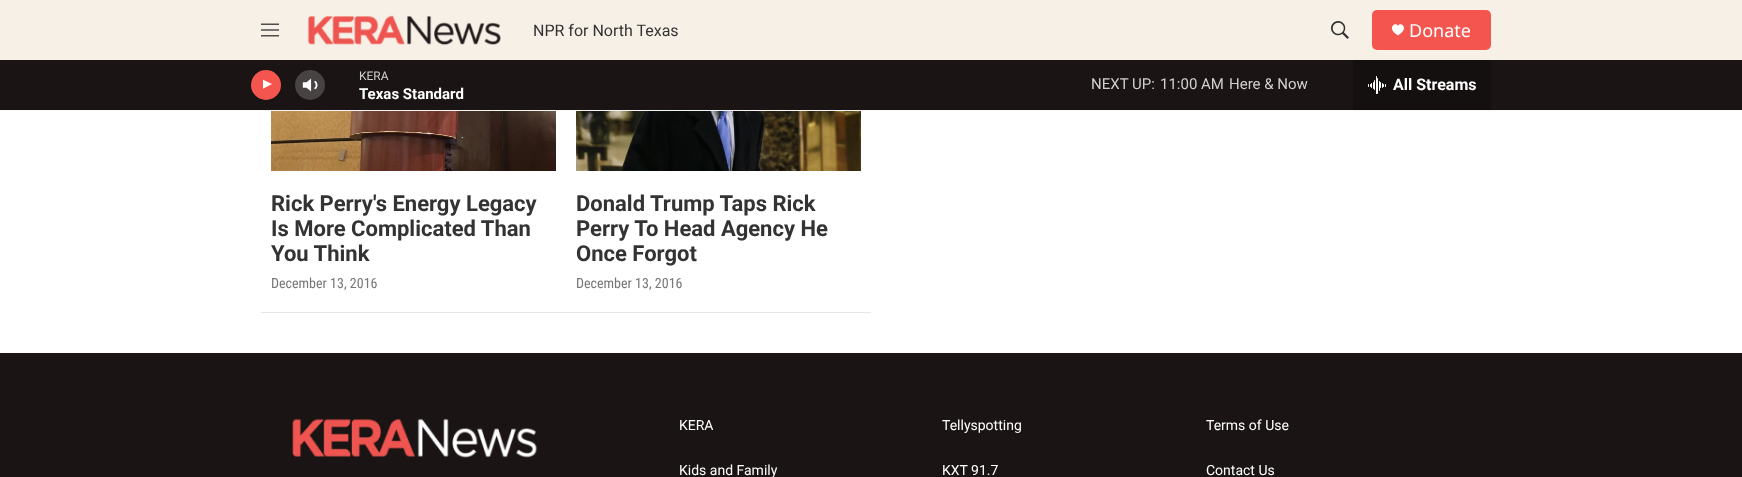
(async () => {
    const canvas = document.querySelector("canvas");
    canvas.width = 1742;
    canvas.height = 477;
    const context = canvas.getContext("2d");
    context.miterLimit = 4;
    context.fontKerning = "normal";
    function write(s, x, y, font, color) {
        context.font = font;
        context.fillStyle = color;
        context.fillText(s, x, y);
    }
    function block(x, y, w, h, color) {
        context.fillStyle = color;
        context.fillRect(x, y, w, h);
    }
    function card(x, y, w, h, r, color) {
        context.fillStyle = color;
        context.beginPath();
        context.roundRect(x, y, w, h, r);
        context.fill();
    }
    async function photo(src, x, y, w, h) {
        const img = new Image();
        img.src = src;
        await img.decode();
        context.drawImage(img, x, y, w, h);
    }

    block(0, 0, 1742, 477, "rgb(255, 255, 255)");
    block(0, 0, 1742, 60, "rgb(247, 240, 231)");
    block(0, 110, 1742, 1, "rgb(245, 245, 245)");
    await photo("media/1.png", 261, 23, 18, 14);
    await photo("media/2.png", 307, 15, 194, 31);
    write("NPR for North Texas", 533, 36, "16px Roboto", "rgb(51, 51, 51)");
    await photo("media/3.png", 1331, 21, 18, 18);
    card(1372, 10, 119, 40, 5, "rgb(245, 85, 79)");
    context.fillStyle = "rgb(255, 255, 255)";
    context.beginPath();
    context.moveTo(1398, 26);
    context.bezierCurveTo(1396, 21, 1385.5, 28, 1398, 35.5);
    context.bezierCurveTo(1410.5, 28, 1400, 21, 1398, 26);
    context.closePath();
    context.fill();
    write("Donate", 1409, 37, "18px Noto Sans", "rgb(255, 255, 255)");
    block(0, 60, 1742, 50, "rgb(26, 20, 20)");
    context.fillStyle = "rgb(245, 85, 79)";
    context.beginPath();
    context.arc(266, 85, 15, 0, Math.PI * 2);
    context.fill();
    context.save();
    context.beginPath();
    context.rect(263, 78, 12, 15);
    context.clip();
    context.fillStyle = "rgb(255, 255, 255)";
    context.beginPath();
    context.moveTo(262.5, 79.5);
    context.lineTo(272, 84);
    context.lineTo(262.5, 89);
    context.closePath();
    context.fill();
    context.restore();
    await photo("media/4.png", 302, 78, 16, 14);
    context.fillStyle = "rgba(255, 255, 255, 0.2)";
    context.beginPath();
    context.arc(310, 85, 15, 0, Math.PI * 2);
    context.fill();
    write("KERA", 359, 80, "12px Roboto", "rgb(209, 208, 208)");
    write("Texas Standard", 359, 99, "bold 15px 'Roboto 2'", "rgb(255, 255, 255)");
    write("NEXT UP:", 1091, 89, "15px Roboto", "rgb(209, 208, 208)");
    write("11:00 AM", 1160, 89, "15px Roboto", "rgb(209, 208, 208)");
    write("Here & Now", 1229, 89, "15px Roboto", "rgb(209, 208, 208)");
    block(1353, 60, 138, 50, "rgb(21, 16, 16)");
    await photo("media/5.png", 1368, 76, 18, 18);
    write("All Streams", 1393, 90, "bold 16px 'Roboto 2'", "rgb(255, 255, 255)");
    block(261, 312, 610, 1, "rgb(230, 230, 230)");
    await photo("media/6.png", 271, 111, 285, 60);
    write("Rick Perry's Energy Legacy", 271, 211, "bold 22px Roboto", "rgb(51, 51, 51)");
    write("Is More Complicated Than", 271, 236, "bold 22px Roboto", "rgb(51, 51, 51)");
    write("You Think", 271, 261, "bold 22px Roboto", "rgb(51, 51, 51)");
    write("December 13, 2016", 271, 288, "14px Roboto Condensed", "rgb(118, 118, 118)");
    await photo("media/7.png", 576, 111, 285, 60);
    write("Donald Trump Taps Rick", 576, 211, "bold 22px Roboto", "rgb(51, 51, 51)");
    write("Perry To Head Agency He", 576, 236, "bold 22px Roboto", "rgb(51, 51, 51)");
    write("Once Forgot", 576, 261, "bold 22px Roboto", "rgb(51, 51, 51)");
    write("December 13, 2016", 576, 288, "14px Roboto Condensed", "rgb(118, 118, 118)");
    block(0, 353, 1742, 124, "rgb(26, 20, 20)");
    await photo("media/8.png", 292, 418, 246, 40);
    write("KERA", 679, 430, "14px Roboto", "rgb(255, 255, 255)");
    write("Tellyspotting", 942, 430, "14px Roboto", "rgb(255, 255, 255)");
    write("Terms of Use", 1206, 430, "14px Roboto", "rgb(255, 255, 255)");
    write("Kids and Family", 679, 475, "14px Roboto", "rgb(255, 255, 255)");
    write("KXT 91.7", 942, 475, "14px Roboto", "rgb(255, 255, 255)");
    write("Contact Us", 1206, 475, "14px Roboto", "rgb(255, 255, 255)");
})();
